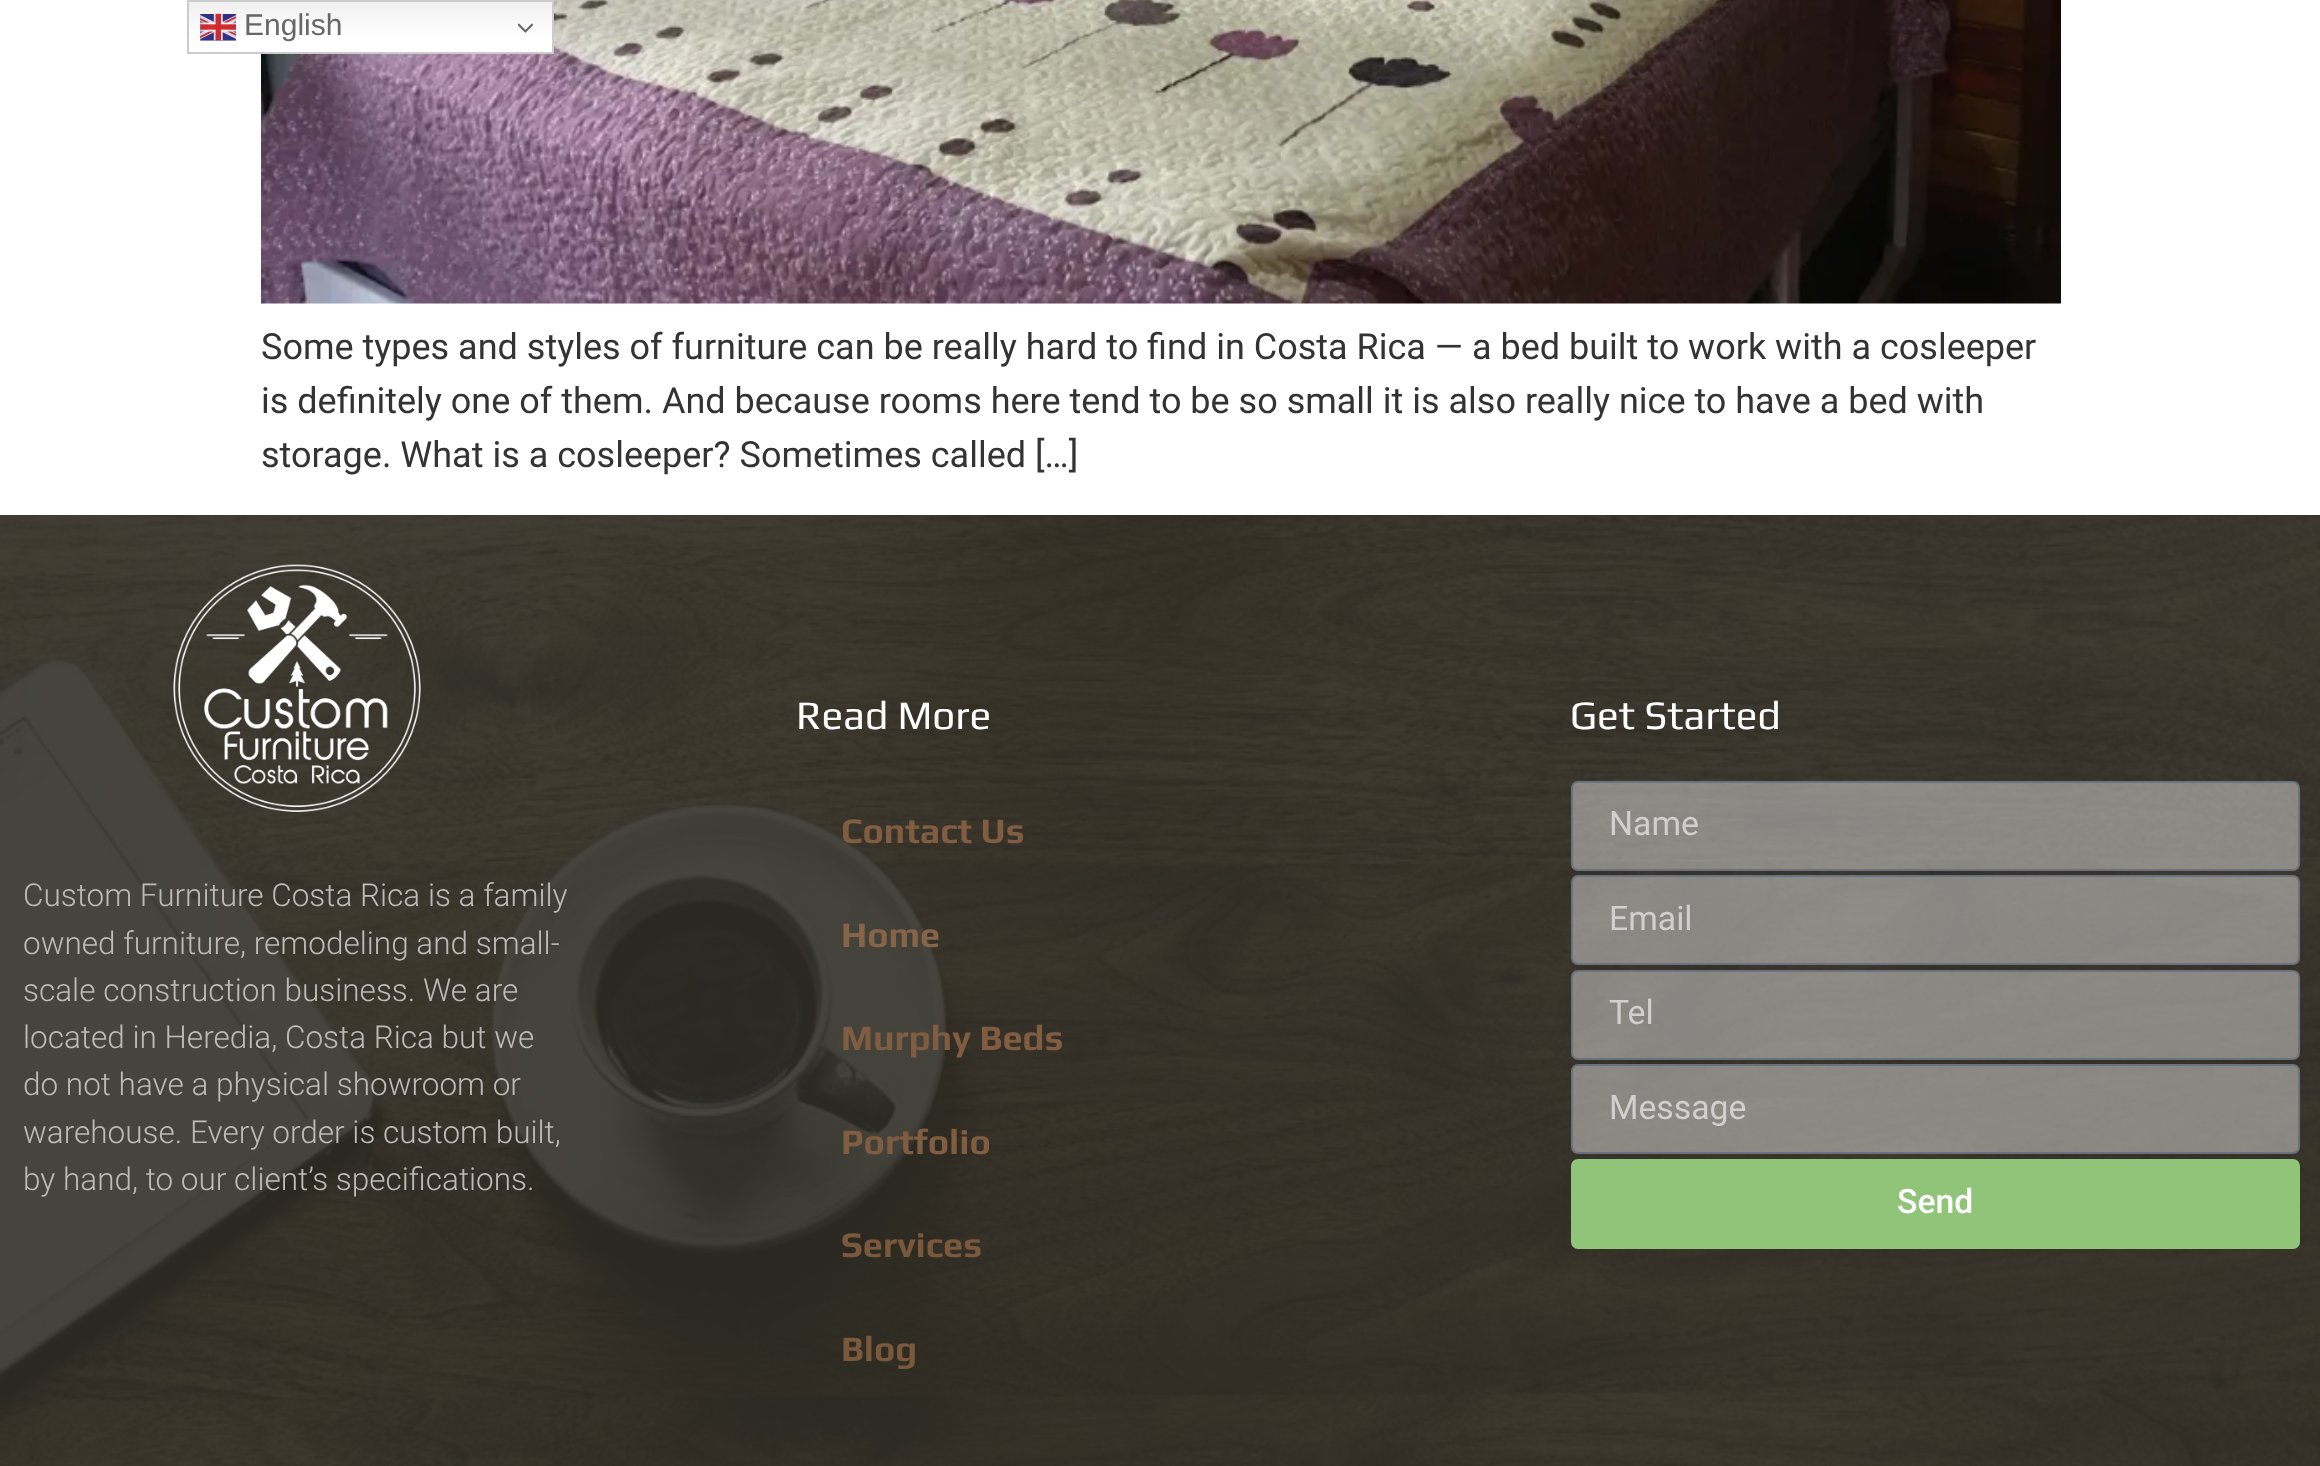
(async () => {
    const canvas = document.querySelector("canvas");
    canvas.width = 2320;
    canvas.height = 1466;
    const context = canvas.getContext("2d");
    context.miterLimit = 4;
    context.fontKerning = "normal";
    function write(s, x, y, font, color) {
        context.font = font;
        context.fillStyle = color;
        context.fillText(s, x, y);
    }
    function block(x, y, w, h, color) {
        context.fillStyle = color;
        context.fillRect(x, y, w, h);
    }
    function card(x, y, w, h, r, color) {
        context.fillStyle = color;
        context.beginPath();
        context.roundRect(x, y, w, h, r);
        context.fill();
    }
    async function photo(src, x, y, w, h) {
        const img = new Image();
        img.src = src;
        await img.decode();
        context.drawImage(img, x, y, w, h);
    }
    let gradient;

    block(0, 0, 2320, 1466, "rgb(255, 255, 255)");
    await photo("media/3.png", 261, 0, 1800, 304);
    gradient = context.createLinearGradient(370, 0, 370, 54);
    gradient.addColorStop(0, "rgb(239, 239, 239)");
    gradient.addColorStop(0.7, "rgb(255, 255, 255)");
    context.fillStyle = gradient;
    context.fillRect(189, 2, 363, 50);
    context.strokeStyle = "rgb(204, 204, 204)";
    context.lineWidth = 2;
    context.strokeRect(188, 1, 365, 52);
    await photo("media/1.png", 200, 13, 36, 28);
    write("English", 244, 35, "30px Liberation Sans", "rgb(102, 102, 102)");
    await photo("media/2.png", 518, 23, 15, 10);
    write("Some types and styles of furniture can be really hard to find in Costa Rica — a bed built to work with a cosleeper", 261, 359, "36px Roboto", "rgb(51, 51, 51)");
    write("is definitely one of them. And because rooms here tend to be so small it is also really nice to have a bed with", 261, 413, "36px Roboto", "rgb(51, 51, 51)");
    write("storage. What is a cosleeper? Sometimes called […]", 261, 467, "36px Roboto", "rgb(51, 51, 51)");
    await photo("media/4.png", 0, 515, 2320, 951);
    await photo("media/5.png", 173, 564, 248, 248);
    write("Custom Furniture Costa Rica is a family", 23, 906, "300 31.5px Roboto", "rgb(188, 187, 184)");
    write("owned furniture, remodeling and small-", 23, 954, "300 31.5px Roboto", "rgb(188, 187, 184)");
    write("scale construction business. We are", 23, 1001, "300 31.5px Roboto", "rgb(188, 187, 184)");
    write("located in Heredia, Costa Rica but we", 23, 1048, "300 31.5px Roboto", "rgb(188, 187, 184)");
    write("do not have a physical showroom or", 23, 1095, "300 31.5px Roboto", "rgb(188, 187, 184)");
    write("warehouse. Every order is custom built,", 23, 1143, "300 31.5px Roboto", "rgb(188, 187, 184)");
    write("by hand, to our client’s specifications.", 23, 1190, "300 31.5px Roboto", "rgb(188, 187, 184)");
    write("Read More", 796, 729, "40.5px Play", "rgb(255, 255, 255)");
    write("Contact Us", 841, 843, "bold 36px Play", "rgb(128, 93, 64)");
    write("Home", 841, 947, "bold 36px Play", "rgb(134, 100, 72)");
    write("Murphy Beds", 841, 1050, "bold 36px Play", "rgb(128, 93, 64)");
    write("Portfolio", 841, 1154, "bold 36px Play", "rgb(128, 93, 64)");
    write("Services", 841, 1257, "bold 36px Play", "rgb(122, 88, 59)");
    write("Blog", 841, 1361, "bold 36px Play", "rgb(122, 88, 59)");
    write("Get Started", 1570, 729, "40.5px Play", "rgb(255, 255, 255)");
    context.fillStyle = "rgba(255, 255, 255, 0.42)";
    context.beginPath();
    context.roundRect(1572, 782, 727, 88, 6);
    context.fill();
    context.strokeStyle = "rgb(105, 114, 125)";
    context.stroke();
    write("Name", 1609, 835, "33.75px Roboto", "rgb(209, 208, 206)");
    context.fillStyle = "rgba(255, 255, 255, 0.42)";
    context.beginPath();
    context.roundRect(1572, 876, 727, 88, 6);
    context.fill();
    context.stroke();
    write("Email", 1609, 930, "33.75px Roboto", "rgb(209, 208, 206)");
    context.fillStyle = "rgba(255, 255, 255, 0.42)";
    context.beginPath();
    context.roundRect(1572, 971, 727, 88, 6);
    context.fill();
    context.stroke();
    write("Tel", 1609, 1024, "33.75px Roboto", "rgb(209, 208, 206)");
    context.fillStyle = "rgba(255, 255, 255, 0.42)";
    context.beginPath();
    context.roundRect(1572, 1065, 727, 88, 6);
    context.fill();
    context.stroke();
    write("Message", 1609, 1119, "33.75px Roboto", "rgb(209, 208, 206)");
    card(1571, 1159, 729, 90, 7, "rgb(143, 196, 121)");
    write("Send", 1897, 1213, "500 33.75px Roboto", "rgb(255, 255, 255)");
})();
